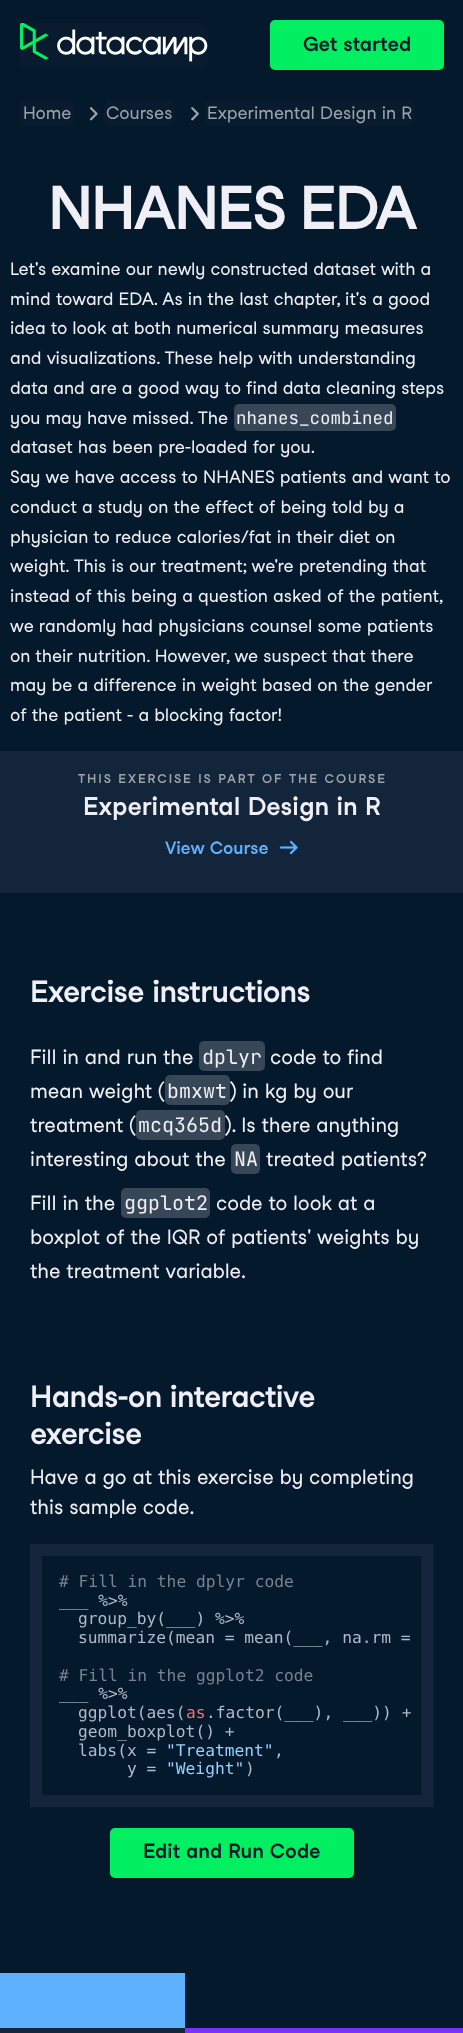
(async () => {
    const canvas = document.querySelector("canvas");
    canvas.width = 463;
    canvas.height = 2033;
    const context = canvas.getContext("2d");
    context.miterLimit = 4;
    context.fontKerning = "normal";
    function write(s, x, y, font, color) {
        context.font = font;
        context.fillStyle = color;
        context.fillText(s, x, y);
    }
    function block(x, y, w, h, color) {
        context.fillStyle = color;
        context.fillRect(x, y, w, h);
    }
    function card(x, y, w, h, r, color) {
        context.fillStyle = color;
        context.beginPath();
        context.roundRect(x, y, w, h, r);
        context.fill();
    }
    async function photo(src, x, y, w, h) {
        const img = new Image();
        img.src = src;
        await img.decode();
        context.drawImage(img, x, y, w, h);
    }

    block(0, 0, 463, 2033, "rgb(5, 25, 45)");
    card(20, 23, 188, 45, 5, "rgb(8, 27, 47)");
    await photo("media/1.png", 20, 23, 188, 39);
    card(270, 20, 174, 50, 5, "rgb(3, 239, 98)");
    write("Get started", 303, 51, "600 20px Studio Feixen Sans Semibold", "rgb(5, 25, 45)");
    card(20, 100, 54, 26, 5, "rgb(8, 27, 47)");
    write("Home", 23, 119, "17.5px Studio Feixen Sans", "rgb(155, 163, 171)");
    await photo("media/2.png", 89, 107, 9, 14);
    card(104, 100, 71, 26, 5, "rgb(8, 27, 47)");
    write("Courses", 106, 119, "17.5px Studio Feixen Sans", "rgb(155, 163, 171)");
    await photo("media/3.png", 191, 107, 8, 14);
    card(205, 100, 210, 26, 5, "rgb(8, 27, 47)");
    write("Experimental Design in R", 207, 119, "17.5px Studio Feixen Sans", "rgb(155, 163, 171)");
    context.letterSpacing = "-2.25px";
    write("NHANES EDA", 48, 229, "600 60px Studio Feixen Sans Semibold", "rgb(239, 239, 245)");
    context.letterSpacing = "0px";
    write("Let's examine our newly constructed dataset with a", 10, 275, "17.5px Studio Feixen Sans", "rgb(239, 239, 245)");
    write("mind toward EDA. As in the last chapter, it's a good", 10, 305, "17.5px Studio Feixen Sans", "rgb(239, 239, 245)");
    write("idea to look at both numerical summary measures", 10, 334, "17.5px Studio Feixen Sans", "rgb(239, 239, 245)");
    write("and visualizations. These help with understanding", 10, 364, "17.5px Studio Feixen Sans", "rgb(239, 239, 245)");
    write("data and are a good way to find data cleaning steps", 10, 394, "17.5px Studio Feixen Sans", "rgb(239, 239, 245)");
    write("you may have missed. The", 10, 424, "17.5px Studio Feixen Sans", "rgb(239, 239, 245)");
    card(234, 404, 162, 27, 5, "rgb(55, 71, 87)");
    write("nhanes_combined", 236, 424, "17.5px JetBrains Mono", "rgb(239, 239, 245)");
    write("dataset has been pre-loaded for you.", 10, 453, "17.5px Studio Feixen Sans", "rgb(239, 239, 245)");
    write("Say we have access to NHANES patients and want to", 10, 483, "17.5px Studio Feixen Sans", "rgb(239, 239, 245)");
    write("conduct a study on the effect of being told by a", 10, 513, "17.5px Studio Feixen Sans", "rgb(239, 239, 245)");
    write("physician to reduce calories/fat in their diet on", 10, 543, "17.5px Studio Feixen Sans", "rgb(239, 239, 245)");
    write("weight. This is our treatment; we're pretending that", 10, 572, "17.5px Studio Feixen Sans", "rgb(239, 239, 245)");
    write("instead of this being a question asked of the patient,", 10, 602, "17.5px Studio Feixen Sans", "rgb(239, 239, 245)");
    write("we randomly had physicians counsel some patients", 10, 632, "17.5px Studio Feixen Sans", "rgb(239, 239, 245)");
    write("on their nutrition. However, we suspect that there", 10, 662, "17.5px Studio Feixen Sans", "rgb(239, 239, 245)");
    write("may be a difference in weight based on the gender", 10, 691, "17.5px Studio Feixen Sans", "rgb(239, 239, 245)");
    write("of the patient - a blocking factor!", 10, 721, "17.5px Studio Feixen Sans", "rgb(239, 239, 245)");
    block(0, 751, 463, 142, "rgb(19, 37, 58)");
    context.letterSpacing = "1.9px";
    write("THIS EXERCISE IS PART OF THE COURSE", 78, 783, "600 12.5px Studio Feixen Sans Semibold", "rgb(155, 163, 171)");
    context.letterSpacing = "0px";
    write("Experimental Design in R", 83, 815, "600 25px Studio Feixen Sans Semibold", "rgb(239, 239, 245)");
    write("View Course", 165, 854, "600 17.5px Studio Feixen Sans Semibold", "rgb(94, 177, 255)");
    await photo("media/4.png", 279, 840, 19, 15);
    context.letterSpacing = "-0.6px";
    write("Exercise instructions", 30, 1002, "600 30px Studio Feixen Sans Semibold", "rgb(239, 239, 245)");
    context.letterSpacing = "0px";
    write("Fill in and run the", 30, 1064, "20px Studio Feixen Sans", "rgb(239, 239, 245)");
    card(199, 1041, 66, 30, 5, "rgb(55, 71, 87)");
    write("dplyr", 202, 1064, "20px JetBrains Mono", "rgb(239, 239, 245)");
    write("code to find", 270, 1064, "20px Studio Feixen Sans", "rgb(239, 239, 245)");
    write("mean weight (", 30, 1098, "20px Studio Feixen Sans", "rgb(239, 239, 245)");
    card(165, 1075, 65, 30, 5, "rgb(55, 71, 87)");
    write("bmxwt", 167, 1098, "20px JetBrains Mono", "rgb(239, 239, 245)");
    write(") in kg by our", 230, 1098, "20px Studio Feixen Sans", "rgb(239, 239, 245)");
    write("treatment (", 30, 1132, "20px Studio Feixen Sans", "rgb(239, 239, 245)");
    card(136, 1110, 89, 30, 5, "rgb(55, 71, 87)");
    write("mcq365d", 138, 1132, "20px JetBrains Mono", "rgb(239, 239, 245)");
    write("). Is there anything", 225, 1132, "20px Studio Feixen Sans", "rgb(239, 239, 245)");
    write("interesting about the", 30, 1166, "20px Studio Feixen Sans", "rgb(239, 239, 245)");
    card(231, 1144, 29, 30, 5, "rgb(55, 71, 87)");
    write("NA", 234, 1166, "20px JetBrains Mono", "rgb(239, 239, 245)");
    write("treated patients?", 266, 1166, "20px Studio Feixen Sans", "rgb(239, 239, 245)");
    write("Fill in the", 30, 1210, "20px Studio Feixen Sans", "rgb(239, 239, 245)");
    card(121, 1188, 89, 30, 5, "rgb(55, 71, 87)");
    write("ggplot2", 124, 1210, "20px JetBrains Mono", "rgb(239, 239, 245)");
    write("code to look at a", 216, 1210, "20px Studio Feixen Sans", "rgb(239, 239, 245)");
    write("boxplot of the IQR of patients' weights by", 30, 1244, "20px Studio Feixen Sans", "rgb(239, 239, 245)");
    write("the treatment variable.", 30, 1278, "20px Studio Feixen Sans", "rgb(239, 239, 245)");
    context.letterSpacing = "-0.6px";
    write("Hands-on interactive", 30, 1407, "600 30px Studio Feixen Sans Semibold", "rgb(239, 239, 245)");
    write("exercise", 30, 1444, "600 30px Studio Feixen Sans Semibold", "rgb(239, 239, 245)");
    context.letterSpacing = "0px";
    write("Have a go at this exercise by completing", 30, 1484, "20px Studio Feixen Sans", "rgb(239, 239, 245)");
    write("this sample code.", 30, 1514, "20px Studio Feixen Sans", "rgb(239, 239, 245)");
    context.beginPath();
    context.moveTo(36, 1550);
    context.lineTo(427.5, 1550);
    context.lineTo(427.5, 1801);
    context.lineTo(36, 1801);
    context.closePath();
    context.strokeStyle = "rgb(19, 37, 58)";
    context.lineWidth = 12.5;
    context.stroke();
    block(43, 1556, 378, 239, "rgb(5, 25, 45)");
    write("# Fill in the dplyr code", 59, 1587, "16.25px DejaVu Sans Mono", "rgb(118, 131, 144)");
    write("___ %>%", 59, 1606, "16.25px DejaVu Sans Mono", "rgb(173, 186, 199)");
    write("group_by(___) %>%", 78, 1624, "16.25px DejaVu Sans Mono", "rgb(173, 186, 199)");
    write("summarize(mean = mean(___, na.rm =", 78, 1643, "16.25px DejaVu Sans Mono", "rgb(173, 186, 199)");
    write("# Fill in the ggplot2 code", 59, 1681, "16.25px DejaVu Sans Mono", "rgb(118, 131, 144)");
    write("___ %>%", 59, 1699, "16.25px DejaVu Sans Mono", "rgb(173, 186, 199)");
    write("ggplot(aes(", 78, 1718, "16.25px DejaVu Sans Mono", "rgb(173, 186, 199)");
    write("as", 186, 1718, "16.25px DejaVu Sans Mono", "rgb(244, 112, 103)");
    write(".factor(___), ___)) +", 206, 1718, "16.25px DejaVu Sans Mono", "rgb(173, 186, 199)");
    write("geom_boxplot() +", 78, 1737, "16.25px DejaVu Sans Mono", "rgb(173, 186, 199)");
    write("labs(x =", 78, 1756, "16.25px DejaVu Sans Mono", "rgb(173, 186, 199)");
    write("\"Treatment\"", 166, 1756, "16.25px DejaVu Sans Mono", "rgb(150, 208, 255)");
    write(",", 274, 1756, "16.25px DejaVu Sans Mono", "rgb(173, 186, 199)");
    write("y =", 127, 1774, "16.25px DejaVu Sans Mono", "rgb(173, 186, 199)");
    write("\"Weight\"", 166, 1774, "16.25px DejaVu Sans Mono", "rgb(150, 208, 255)");
    write(")", 245, 1774, "16.25px DejaVu Sans Mono", "rgb(173, 186, 199)");
    card(110, 1828, 244, 50, 5, "rgb(3, 239, 98)");
    write("Edit and Run Code", 143, 1858, "600 20px Studio Feixen Sans Semibold", "rgb(5, 25, 45)");
    block(0, 2028, 185, 5, "rgb(19, 37, 58)");
    block(0, 1973, 185, 55, "rgb(94, 177, 255)");
    block(185, 2028, 278, 5, "rgb(121, 51, 255)");
})();
